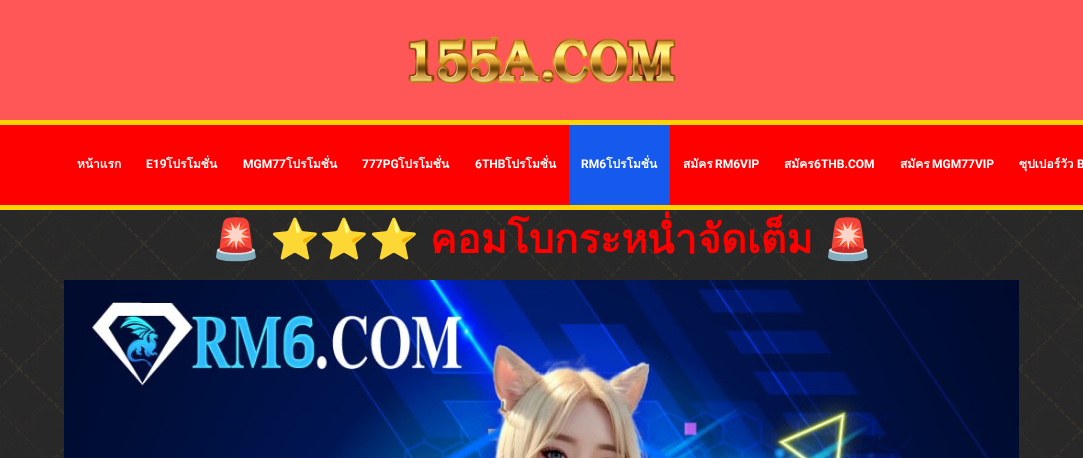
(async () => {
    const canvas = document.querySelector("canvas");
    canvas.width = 1083;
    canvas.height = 458;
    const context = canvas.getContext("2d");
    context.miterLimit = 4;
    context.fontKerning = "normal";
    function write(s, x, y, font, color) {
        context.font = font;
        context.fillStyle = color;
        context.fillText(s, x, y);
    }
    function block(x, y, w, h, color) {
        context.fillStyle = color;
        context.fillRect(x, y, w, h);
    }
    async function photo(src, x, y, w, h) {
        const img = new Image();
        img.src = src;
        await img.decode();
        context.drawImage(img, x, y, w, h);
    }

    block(0, 0, 1083, 458, "rgb(255, 255, 255)");
    await photo("media/1.png", 0, 210, 1083, 248);
    block(0, 0, 1083, 120, "rgb(255, 87, 87)");
    await photo("media/2.png", 408, 36, 268, 48);
    block(0, 125, 1083, 80, "rgb(255, 0, 0)");
    block(0, 120, 1083, 5, "rgb(255, 212, 0)");
    block(0, 205, 1083, 5, "rgb(255, 212, 0)");
    write("หน้าแรก", 77, 168, "bold 12px Loma", "rgb(255, 255, 255)");
    write("E19", 146, 168, "bold 12px Roboto", "rgb(255, 255, 255)");
    write("โปรโมชั่น", 166, 168, "bold 12px Loma", "rgb(255, 255, 255)");
    write("MGM77", 243, 168, "bold 12px Roboto", "rgb(255, 255, 255)");
    write("โปรโมชั่น", 286, 168, "bold 12px Loma", "rgb(255, 255, 255)");
    write("777PG", 362, 168, "bold 12px Roboto", "rgb(255, 255, 255)");
    write("โปรโมชั่น", 398, 168, "bold 12px Loma", "rgb(255, 255, 255)");
    write("6THB", 475, 168, "bold 12px Roboto", "rgb(255, 255, 255)");
    write("โปรโมชั่น", 505, 168, "bold 12px Loma", "rgb(255, 255, 255)");
    block(569, 125, 101, 80, "rgb(21, 89, 237)");
    write("RM6", 581, 168, "bold 12px Roboto", "rgb(255, 255, 255)");
    write("โปรโมชั่น", 606, 168, "bold 12px Loma", "rgb(255, 255, 255)");
    write("สมัคร", 683, 168, "bold 12px Loma", "rgb(255, 255, 255)");
    write("RM6VIP", 715, 168, "bold 12px Roboto", "rgb(255, 255, 255)");
    write("สมัคร", 784, 168, "bold 12px Loma", "rgb(255, 255, 255)");
    write("6THB.COM", 814, 168, "bold 12px Roboto", "rgb(255, 255, 255)");
    write("สมัคร", 900, 168, "bold 12px Loma", "rgb(255, 255, 255)");
    write("MGM77VIP", 932, 168, "bold 12px Roboto", "rgb(255, 255, 255)");
    write("ซุปเปอร์วัว", 1019, 168, "bold 12px Loma", "rgb(255, 255, 255)");
    write("B", 1077, 168, "bold 12px Roboto", "rgb(255, 255, 255)");
    write("🚨", 211, 253, "bold 40px Noto Color Emoji", "rgb(255, 0, 0)");
    write("⭐⭐⭐", 270, 253, "bold 40px Noto Color Emoji", "rgb(255, 0, 0)");
    write("คอมโบกระหน่ำจัดเต็ม", 430, 253, "bold 40px Loma", "rgb(255, 0, 0)");
    write("🚨", 823, 253, "bold 40px Noto Color Emoji", "rgb(255, 0, 0)");
    await photo("media/3.png", 64, 280, 955, 178);
})();
